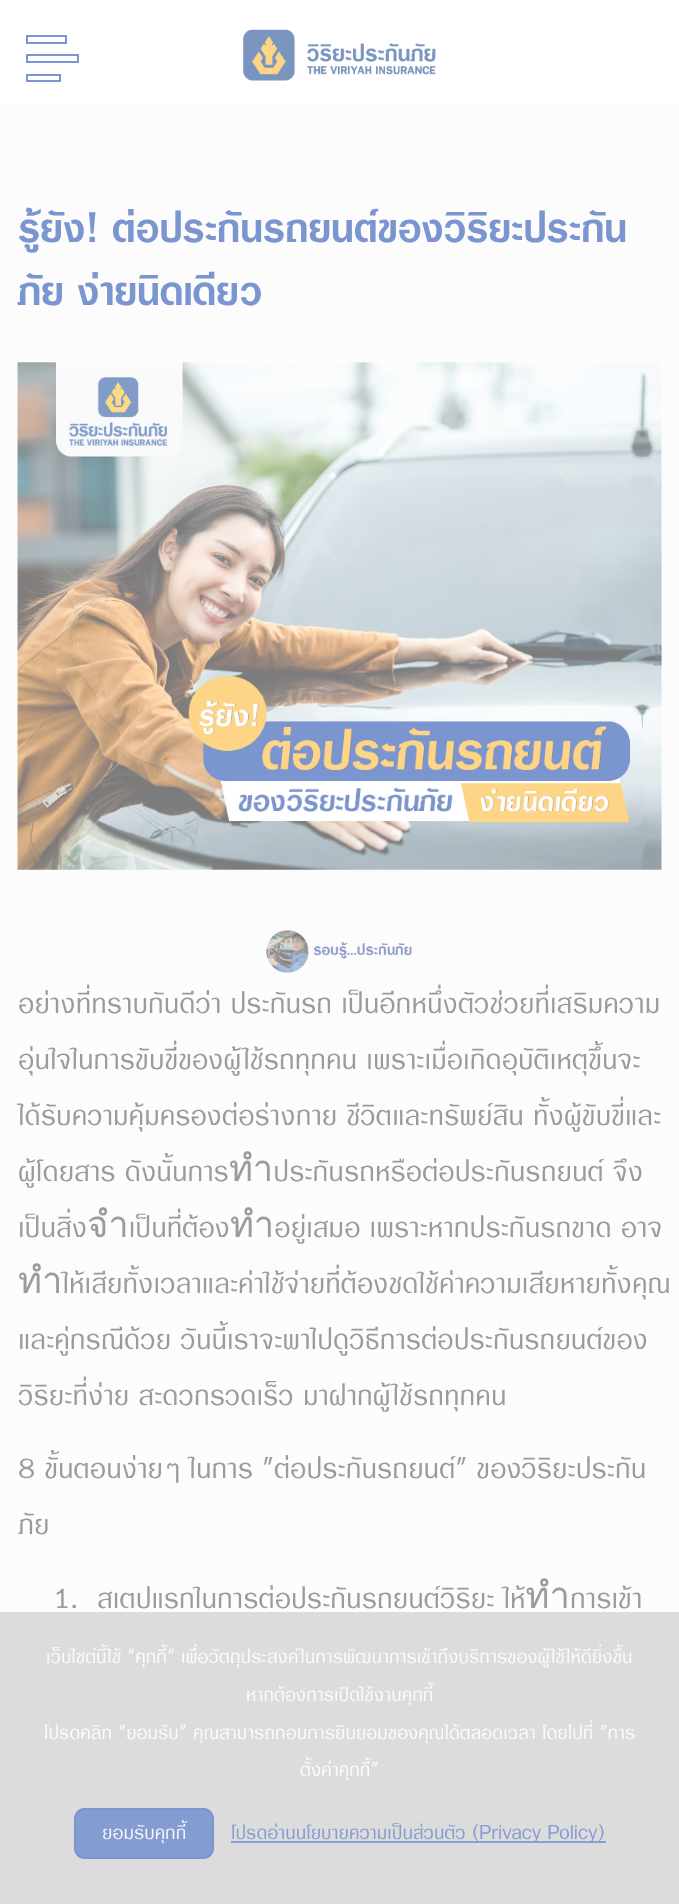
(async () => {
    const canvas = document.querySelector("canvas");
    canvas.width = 679;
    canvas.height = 1904;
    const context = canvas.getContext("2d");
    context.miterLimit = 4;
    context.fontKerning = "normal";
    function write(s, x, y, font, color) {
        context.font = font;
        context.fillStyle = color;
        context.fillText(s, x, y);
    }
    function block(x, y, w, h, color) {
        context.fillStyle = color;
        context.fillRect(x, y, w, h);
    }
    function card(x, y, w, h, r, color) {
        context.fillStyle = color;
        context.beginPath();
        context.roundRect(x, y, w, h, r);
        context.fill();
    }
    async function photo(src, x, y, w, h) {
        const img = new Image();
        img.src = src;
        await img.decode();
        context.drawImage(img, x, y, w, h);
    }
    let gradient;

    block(0, 0, 679, 1904, "rgb(255, 255, 255)");
    context.strokeStyle = "rgb(122, 149, 207)";
    context.lineWidth = 2;
    context.strokeRect(27, 36, 39, 7);
    context.strokeRect(27, 55, 51, 7);
    context.strokeRect(27, 75, 33, 6);
    await photo("media/1.png", 243, 29, 193, 52);
    gradient = context.createLinearGradient(340, 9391, 340, 105);
    gradient.addColorStop(0, "rgb(255, 255, 255)");
    gradient.addColorStop(1, "rgb(252, 252, 252)");
    context.fillStyle = gradient;
    context.fillRect(0, 105, 679, 1507);
    gradient = context.createLinearGradient(340, 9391, 340, 105);
    gradient.addColorStop(0, "rgb(220, 220, 220)");
    gradient.addColorStop(1, "rgb(220, 220, 220)");
    context.fillStyle = gradient;
    context.fillRect(0, 1612, 679, 292);
    write("รู้ยัง! ต่อประกันรถยนต์ของวิริยะประกัน", 18, 242, "500 53.25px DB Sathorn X", "rgb(122, 149, 207)");
    write("ภัย ง่ายนิดเดียว", 18, 305, "500 53.25px DB Sathorn X", "rgb(122, 149, 207)");
    await photo("media/2.png", 17, 362, 645, 508);
    await photo("media/3.png", 266, 930, 146, 43);
    write("อย่างที่ทราบกันดีว่า ประกันรถ เป็นอีกหนึ่งตัวช่วยที่เสริมความ", 18, 1013, "36.4px DB Sathorn X", "rgb(155, 155, 155)");
    write("อุ่นใจในการขับขี่ของผู้ใช้รถทุกคน เพราะเมื่อเกิดอุบัติเหตุขึ้นจะ", 18, 1069, "36.4px DB Sathorn X", "rgb(155, 155, 155)");
    write("ได้รับความคุ้มครองต่อร่างกาย ชีวิตและทรัพย์สิน ทั้งผู้ขับขี่และ", 18, 1125, "36.4px DB Sathorn X", "rgb(155, 155, 155)");
    write("ผู้โดยสาร ดังนั้นการทำประกันรถหรือต่อประกันรถยนต์ จึง", 18, 1181, "36.4px DB Sathorn X", "rgb(155, 155, 155)");
    write("เป็นสิ่งจำเป็นที่ต้องทำอยู่เสมอ เพราะหากประกันรถขาด อาจ", 18, 1237, "36.4px DB Sathorn X", "rgb(155, 155, 155)");
    write("ทำให้เสียทั้งเวลาและค่าใช้จ่ายที่ต้องชดใช้ค่าความเสียหายทั้งคุณ", 18, 1293, "36.4px DB Sathorn X", "rgb(155, 155, 155)");
    write("และคู่กรณีด้วย วันนี้เราจะพาไปดูวิธีการต่อประกันรถยนต์ของ", 18, 1349, "36.4px DB Sathorn X", "rgb(155, 155, 155)");
    write("วิริยะที่ง่าย สะดวกรวดเร็ว มาฝากผู้ใช้รถทุกคน", 18, 1405, "36.4px DB Sathorn X", "rgb(155, 155, 155)");
    write("8 ขั้นตอนง่ายๆ ในการ \"ต่อประกันรถยนต์\" ของวิริยะประกัน", 18, 1478, "36.4px DB Sathorn X", "rgb(155, 155, 155)");
    write("ภัย", 18, 1534, "36.4px DB Sathorn X", "rgb(155, 155, 155)");
    write("1.", 53, 1608, "36.4px DB Sathorn X", "rgb(155, 155, 155)");
    write("สเตปแรกในการต่อประกันรถยนต์วิริยะ ให้ทำการเข้า", 97, 1608, "36.4px DB Sathorn X", "rgb(155, 155, 155)");
    write("เว็บไซต์นี้ใช้ \"คุกกี้\" เพื่อวัตถุประสงค์ในการพัฒนาการเข้าถึงบริการของผู้ใช้ให้ดียิ่งขึ้น", 46, 1663, "24.5px DB Sathorn X", "rgb(251, 251, 251)");
    write("หากต้องการเปิดใช้งานคุกกี้", 246, 1701, "24.5px DB Sathorn X", "rgb(251, 251, 251)");
    write("โปรดคลิก \"ยอมรับ\" คุณสามารถถอนการยินยอมของคุณได้ตลอดเวลา โดยไปที่ \"การ", 44, 1739, "24.5px DB Sathorn X", "rgb(251, 251, 251)");
    write("ตั้งค่าคุกกี้\"", 300, 1776, "24.5px DB Sathorn X", "rgb(251, 251, 251)");
    card(74, 1808, 140, 51, 11, "rgba(122, 149, 207, 0.9)");
    context.beginPath();
    context.roundRect(75, 1809, 138, 49, 10);
    context.strokeStyle = "rgba(122, 149, 207, 0.9)";
    context.stroke();
    write("ยอมรับคุกกี้", 102, 1839, "24.5px DB Sathorn X", "rgb(243, 245, 250)");
    block(231, 1841, 375, 2, "rgb(135, 159, 211)");
    write("โปรดอ่านนโยบายความเป็นส่วนตัว (Privacy Policy)", 231, 1839, "24.5px DB Sathorn X", "rgb(132, 156, 208)");
})();
